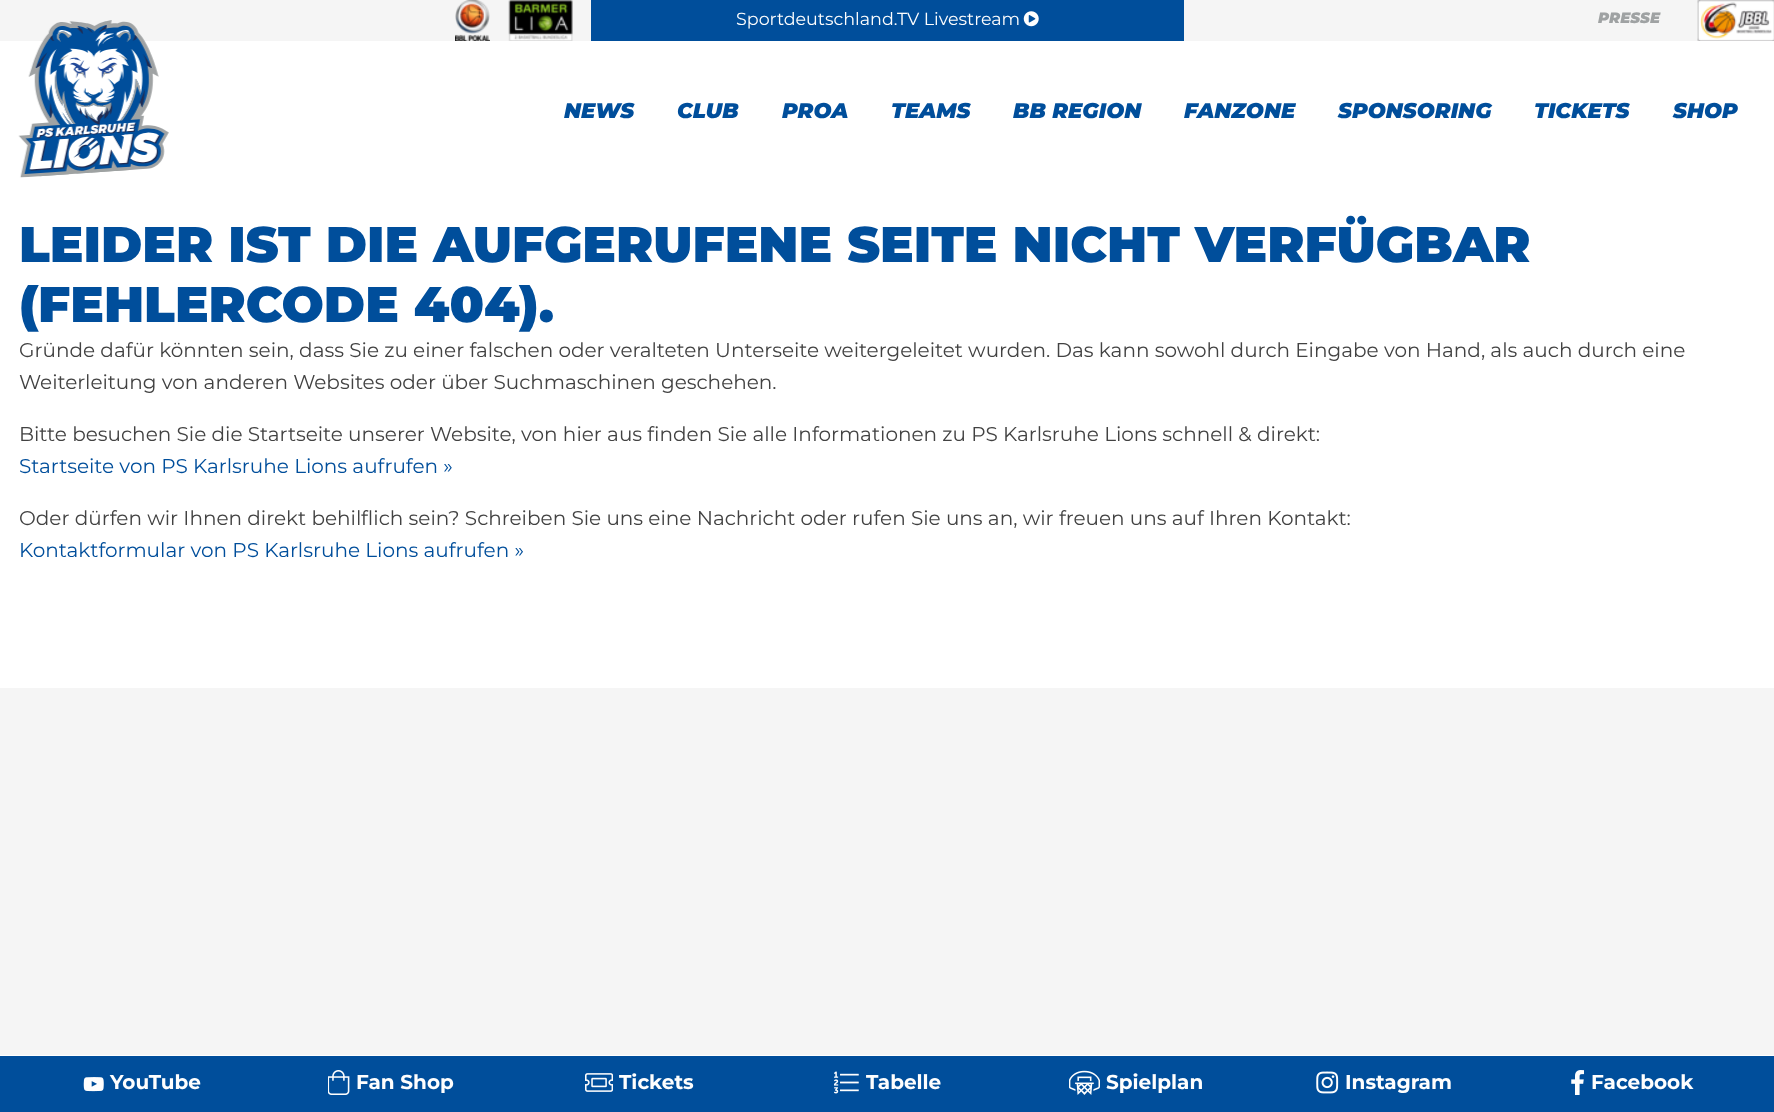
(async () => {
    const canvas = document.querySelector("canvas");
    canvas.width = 1774;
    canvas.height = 1112;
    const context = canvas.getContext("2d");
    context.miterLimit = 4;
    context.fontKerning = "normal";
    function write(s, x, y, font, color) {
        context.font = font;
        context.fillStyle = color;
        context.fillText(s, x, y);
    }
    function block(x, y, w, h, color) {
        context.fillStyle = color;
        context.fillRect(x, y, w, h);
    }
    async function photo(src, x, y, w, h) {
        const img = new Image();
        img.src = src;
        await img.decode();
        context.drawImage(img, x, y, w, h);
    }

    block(0, 0, 1774, 1112, "rgb(255, 255, 255)");
    block(0, 0, 1774, 41, "rgb(245, 245, 245)");
    await photo("media/1.png", 455, 0, 35, 41);
    await photo("media/2.png", 508, 0, 65, 41);
    block(591, 0, 593, 41, "rgb(0, 78, 155)");
    write("Sportdeutschland.TV Livestream", 736, 25, "17.5px Montserrat", "rgb(254, 254, 254)");
    await photo("media/3.png", 1023, 11, 16, 16);
    write("PRESSE", 1598, 23, "italic 900 15px Montserrat", "rgb(159, 162, 163)");
    await photo("media/4.png", 1697, 0, 77, 41);
    await photo("media/5.png", 18, 20, 151, 158);
    write("NEWS", 564, 118, "italic 900 21.25px Montserrat", "rgb(0, 78, 155)");
    write("CLUB", 677, 118, "italic 900 21.25px Montserrat", "rgb(0, 78, 155)");
    write("PROA", 782, 118, "italic 900 21.25px Montserrat", "rgb(0, 78, 155)");
    write("TEAMS", 891, 118, "italic 900 21.25px Montserrat", "rgb(0, 78, 155)");
    write("BB REGION", 1013, 118, "italic 900 21.25px Montserrat", "rgb(0, 78, 155)");
    write("FANZONE", 1184, 118, "italic 900 21.25px Montserrat", "rgb(0, 78, 155)");
    write("SPONSORING", 1338, 118, "italic 900 21.25px Montserrat", "rgb(0, 78, 155)");
    write("TICKETS", 1534, 118, "italic 900 21.25px Montserrat", "rgb(0, 78, 155)");
    write("SHOP", 1673, 118, "italic 900 21.25px Montserrat", "rgb(0, 78, 155)");
    write("LEIDER IST DIE AUFGERUFENE SEITE NICHT VERFÜGBAR", 19, 262, "900 50px Montserrat", "rgb(0, 78, 155)");
    write("(FEHLERCODE 404).", 19, 322, "900 50px Montserrat", "rgb(0, 78, 155)");
    write("Gründe dafür könnten sein, dass Sie zu einer falschen oder veralteten Unterseite weitergeleitet wurden. Das kann sowohl durch Eingabe von Hand, als auch durch eine", 19, 357, "20px Montserrat", "rgb(66, 66, 66)");
    write("Weiterleitung von anderen Websites oder über Suchmaschinen geschehen.", 19, 389, "20px Montserrat", "rgb(66, 66, 66)");
    write("Bitte besuchen Sie die Startseite unserer Website, von hier aus finden Sie alle Informationen zu PS Karlsruhe Lions schnell & direkt:", 19, 441, "20px Montserrat", "rgb(66, 66, 66)");
    write("Startseite von PS Karlsruhe Lions aufrufen »", 19, 473, "20px Montserrat", "rgb(0, 78, 155)");
    write("Oder dürfen wir Ihnen direkt behilflich sein? Schreiben Sie uns eine Nachricht oder rufen Sie uns an, wir freuen uns auf Ihren Kontakt:", 19, 525, "20px Montserrat", "rgb(66, 66, 66)");
    write("Kontaktformular von PS Karlsruhe Lions aufrufen »", 19, 557, "20px Montserrat", "rgb(0, 78, 155)");
    block(0, 688, 1774, 367, "rgb(245, 245, 245)");
    block(0, 1056, 1774, 56, "rgb(0, 78, 155)");
    await photo("media/6.png", 83, 1077, 21, 15);
    write("YouTube", 110, 1089, "bold 20px Montserrat", "rgb(254, 254, 254)");
    await photo("media/7.png", 328, 1070, 22, 25);
    write("Fan Shop", 356, 1089, "bold 20px Montserrat", "rgb(254, 254, 254)");
    await photo("media/8.png", 585, 1073, 28, 19);
    write("Tickets", 619, 1089, "bold 20px Montserrat", "rgb(254, 254, 254)");
    await photo("media/9.png", 834, 1071, 25, 23);
    write("Tabelle", 866, 1089, "bold 20px Montserrat", "rgb(254, 254, 254)");
    await photo("media/10.png", 1069, 1070, 31, 25);
    write("Spielplan", 1106, 1089, "bold 20px Montserrat", "rgb(254, 254, 254)");
    await photo("media/11.png", 1316, 1071, 23, 23);
    write("Instagram", 1345, 1089, "bold 20px Montserrat", "rgb(254, 254, 254)");
    await photo("media/12.png", 1571, 1070, 13, 25);
    write("Facebook", 1591, 1089, "bold 20px Montserrat", "rgb(254, 254, 254)");
})();
